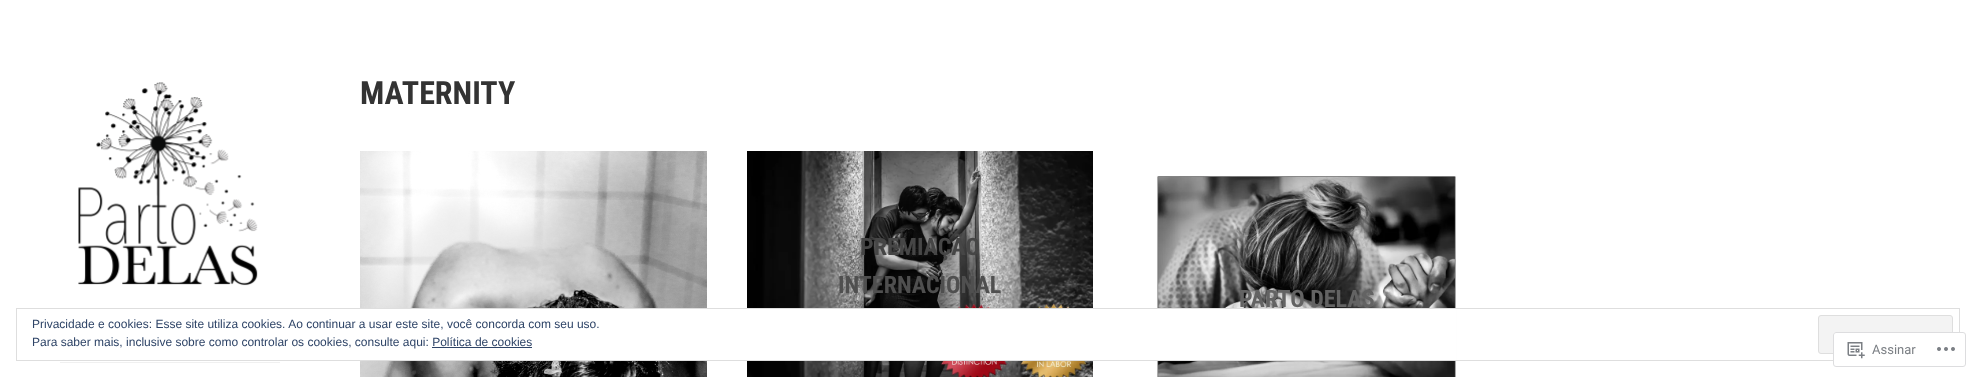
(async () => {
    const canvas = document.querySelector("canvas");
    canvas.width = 1976;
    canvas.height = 377;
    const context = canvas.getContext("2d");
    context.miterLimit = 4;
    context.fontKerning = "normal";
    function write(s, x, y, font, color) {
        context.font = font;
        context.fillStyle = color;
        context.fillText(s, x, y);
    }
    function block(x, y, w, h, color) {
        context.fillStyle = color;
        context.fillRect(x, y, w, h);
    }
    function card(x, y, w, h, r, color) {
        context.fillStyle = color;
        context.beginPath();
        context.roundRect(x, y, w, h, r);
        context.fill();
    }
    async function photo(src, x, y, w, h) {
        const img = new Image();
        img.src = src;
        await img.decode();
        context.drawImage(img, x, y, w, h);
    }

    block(0, 0, 1976, 377, "rgb(255, 255, 255)");
    await photo("media/1.png", 78, 82, 180, 204);
    block(60, 362, 220, 1, "rgb(240, 240, 240)");
    write("MATERNITY", 360, 104, "bold 32px Roboto Condensed", "rgb(51, 51, 51)");
    await photo("media/2.png", 360, 151, 347, 226);
    await photo("media/3.png", 747, 151, 346, 226);
    write("PREMIAÇÃO", 860, 255, "bold 24px Roboto Condensed", "rgb(70, 70, 70)");
    write("INTERNACIONAL", 838, 293, "bold 24px Roboto Condensed", "rgb(79, 79, 79)");
    await photo("media/4.png", 1133, 151, 347, 226);
    write("PARTO DELAS", 1239, 307, "bold 24px Roboto Condensed", "rgb(99, 99, 99)");
    block(360, 309, 1096, 51, "rgb(255, 255, 255)");
    context.strokeStyle = "rgb(222, 222, 222)";
    context.strokeRect(16.5, 308.5, 1943, 52);
    write("Privacidade e cookies: Esse site utiliza cookies. Ao continuar a usar este site, você concorda com seu uso.", 32, 328, "12px Arimo", "rgb(46, 68, 103)");
    context.fillStyle = "rgb(243, 243, 243)";
    context.beginPath();
    context.roundRect(1818.5, 315.5, 134, 38, 2.5);
    context.fill();
    context.stroke();
    write("Para saber mais, inclusive sobre como controlar os cookies, consulte aqui: Política de cookies", 32, 346, "12px Arimo", "rgb(46, 68, 103)");
    block(432, 347, 100, 1, "rgb(46, 68, 103)");
    card(1833, 332, 133, 35, 3, "rgba(255, 255, 255, 0.98)");
    context.beginPath();
    context.roundRect(1833.5, 332.5, 132, 34, 2.5);
    context.strokeStyle = "rgba(220, 220, 222, 0.98)";
    context.stroke();
    await photo("media/5.png", 1847, 342, 18, 17);
    write("Assinar", 1872, 354, "13px Roboto", "rgb(123, 127, 132)");
    await photo("media/6.png", 1937, 347, 18, 4);
})();
